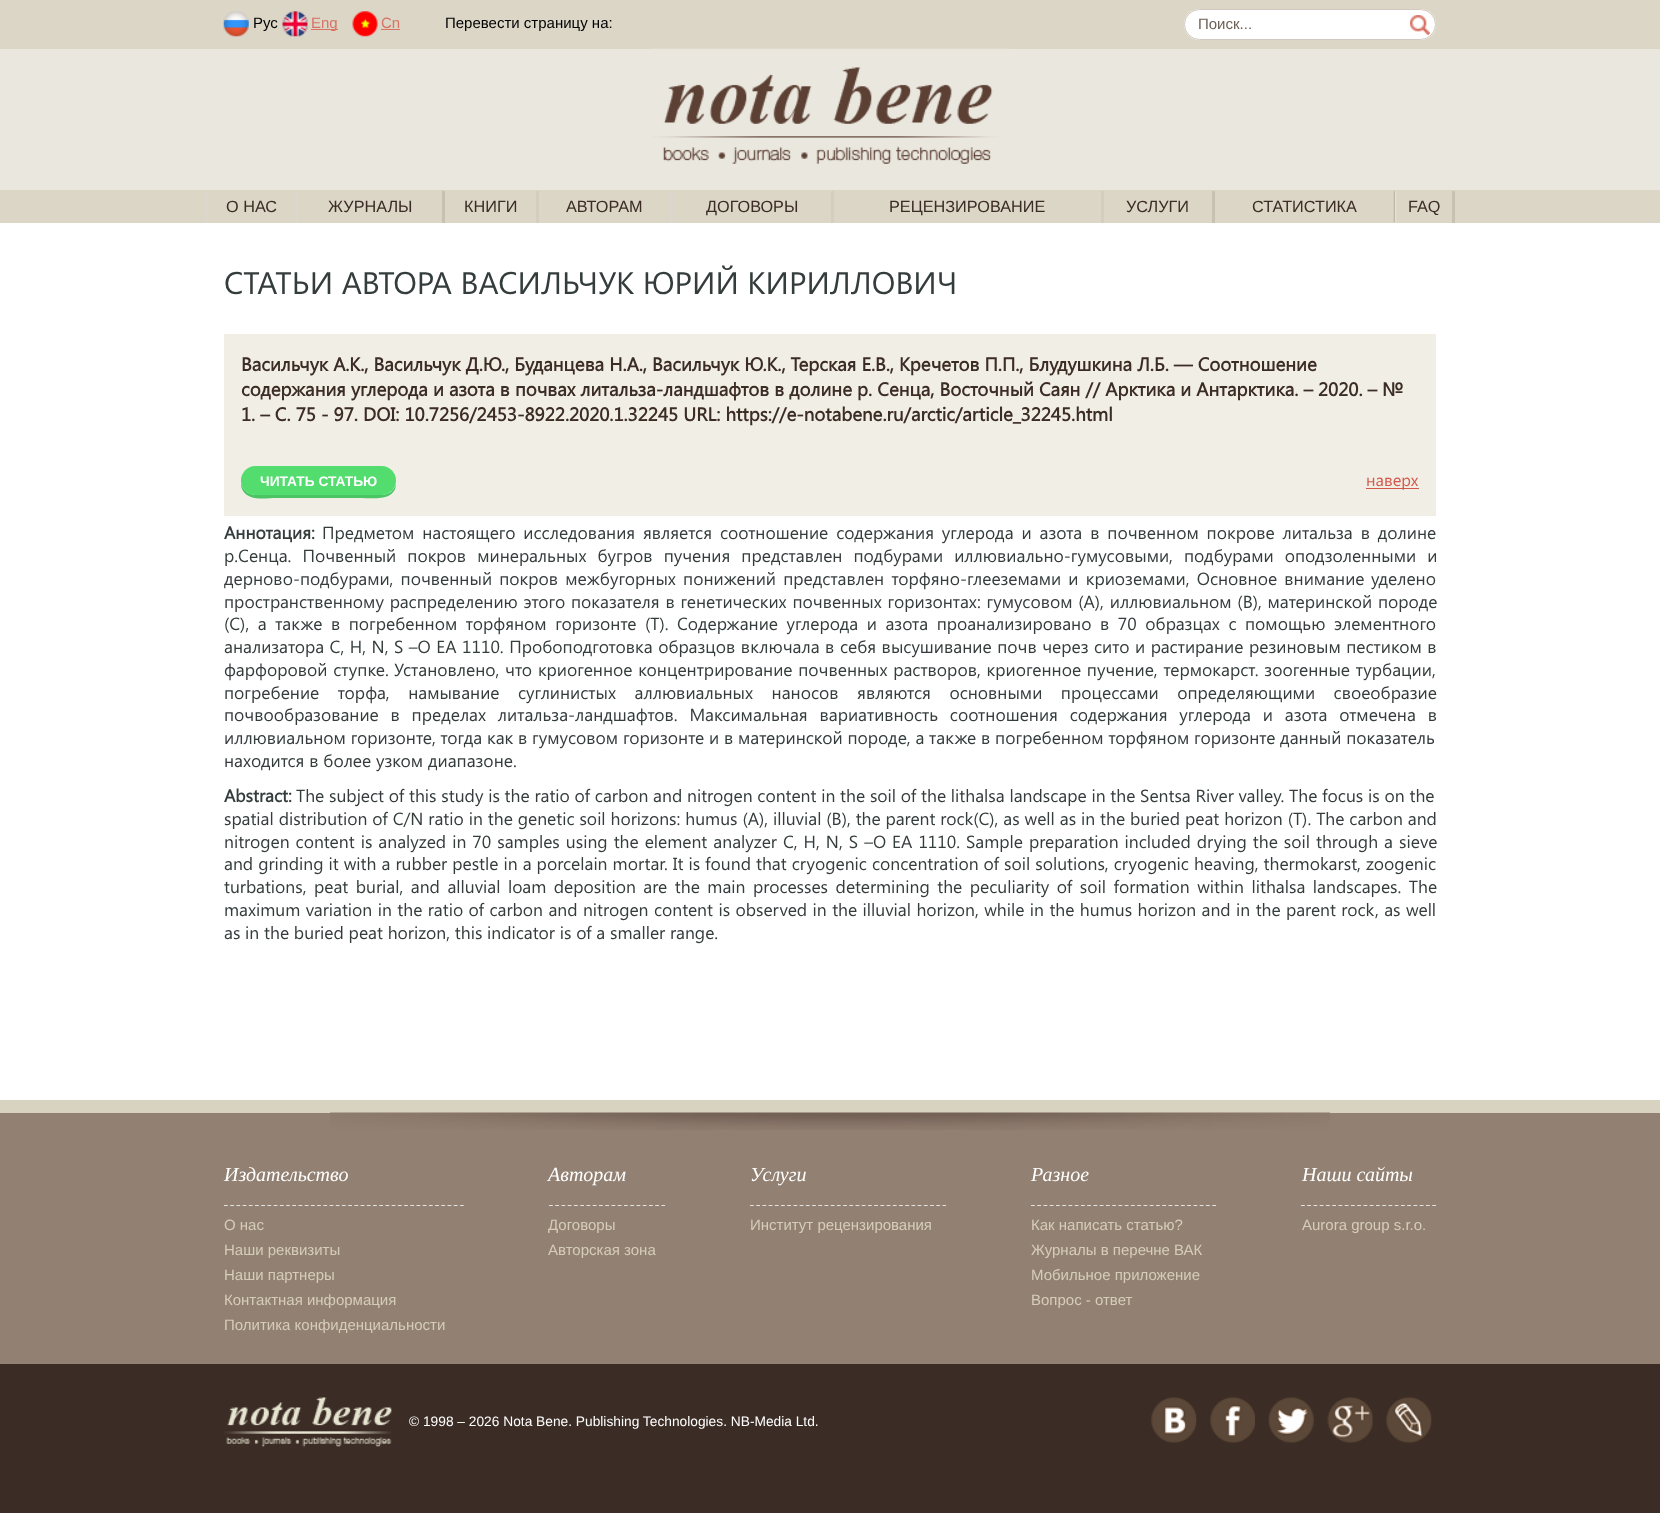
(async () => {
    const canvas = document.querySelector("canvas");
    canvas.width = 1660;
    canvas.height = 1515;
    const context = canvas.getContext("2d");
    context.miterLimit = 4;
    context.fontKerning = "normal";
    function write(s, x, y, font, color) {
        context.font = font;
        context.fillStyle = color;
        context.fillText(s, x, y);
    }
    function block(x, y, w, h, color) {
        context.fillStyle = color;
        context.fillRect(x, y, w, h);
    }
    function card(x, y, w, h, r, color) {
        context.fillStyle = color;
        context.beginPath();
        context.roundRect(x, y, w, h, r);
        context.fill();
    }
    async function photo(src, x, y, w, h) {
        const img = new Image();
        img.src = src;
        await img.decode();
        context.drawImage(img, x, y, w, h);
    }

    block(0, 0, 1660, 1515, "rgb(255, 255, 255)");
    block(0, 0, 1660, 223, "rgb(219, 214, 198)");
    await photo("media/1.png", 223, 11, 26, 26);
    write("Рус", 253, 28, "15px Liberation Sans", "rgb(0, 0, 0)");
    await photo("media/2.png", 282, 11, 26, 26);
    block(311, 29, 27, 1, "rgb(216, 114, 101)");
    write("Eng", 311, 28, "15px Liberation Sans", "rgb(216, 114, 101)");
    await photo("media/3.png", 352, 11, 26, 26);
    write("Cn", 381, 28, "15px Liberation Sans", "rgb(216, 114, 101)");
    block(381, 29, 19, 1, "rgb(216, 114, 101)");
    write("Перевести страницу на:", 445, 28, "15px Liberation Sans", "rgb(0, 0, 0)");
    card(1184, 9, 252, 31, 15.5, "rgb(255, 255, 255)");
    await photo("media/4.png", 1410, 15, 20, 20);
    context.beginPath();
    context.roundRect(1184.5, 9.5, 251, 30, 15);
    context.strokeStyle = "rgb(210, 200, 192)";
    context.stroke();
    write("Поиск...", 1198, 29, "15px Liberation Sans", "rgb(108, 96, 85)");
    block(0, 49, 1660, 141, "rgb(234, 231, 223)");
    await photo("media/5.png", 651, 48, 359, 116);
    block(205, 191, 3, 32, "rgb(219, 215, 204)");
    write("О НАС", 226, 212, "16.25px Liberation Sans", "rgb(59, 44, 37)");
    block(295, 191, 3, 32, "rgb(219, 215, 204)");
    write("ЖУРНАЛЫ", 328, 212, "16.25px Liberation Sans", "rgb(59, 44, 37)");
    block(442, 191, 3, 32, "rgb(199, 193, 178)");
    write("КНИГИ", 464, 212, "16.25px Liberation Sans", "rgb(59, 44, 37)");
    block(536, 191, 3, 32, "rgb(211, 206, 193)");
    write("АВТОРАМ", 566, 212, "16.25px Liberation Sans", "rgb(59, 44, 37)");
    block(670, 191, 3, 32, "rgb(219, 215, 204)");
    write("ДОГОВОРЫ", 706, 212, "16.25px Liberation Sans", "rgb(59, 44, 37)");
    block(831, 191, 3, 32, "rgb(211, 206, 193)");
    write("РЕЦЕНЗИРОВАНИЕ", 889, 212, "16.25px Liberation Sans", "rgb(59, 44, 37)");
    block(1101, 191, 3, 32, "rgb(211, 206, 193)");
    write("УСЛУГИ", 1126, 212, "16.25px Liberation Sans", "rgb(59, 44, 37)");
    block(1212, 191, 3, 32, "rgb(199, 193, 178)");
    write("СТАТИСТИКА", 1252, 212, "16.25px Liberation Sans", "rgb(59, 44, 37)");
    await photo("media/6.png", 1393, 191, 4, 32);
    write("FAQ", 1408, 212, "16.25px Liberation Sans", "rgb(59, 44, 37)");
    block(1452, 191, 3, 32, "rgb(199, 193, 178)");
    write("СТАТЬИ АВТОРА ВАСИЛЬЧУК ЮРИЙ КИРИЛЛОВИЧ", 224, 294, "31.25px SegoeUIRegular", "rgb(52, 60, 60)");
    block(224, 334, 1212, 182, "rgb(241, 238, 230)");
    write("Васильчук А.К., Васильчук Д.Ю., Буданцева Н.А., Васильчук Ю.К., Терская Е.В., Кречетов П.П., Блудушкина Л.Б. — Соотношение", 241, 371, "bold 18.75px SegoeUIRegular", "rgb(59, 44, 37)");
    write("содержания углерода и азота в почвах литальза-ландшафтов в долине р. Сенца, Восточный Саян // Арктика и Антарктика. – 2020. – №", 241, 396, "bold 18.75px SegoeUIRegular", "rgb(59, 44, 37)");
    write("1. – С. 75 - 97. DOI: 10.7256/2453-8922.2020.1.32245 URL: https://e-notabene.ru/arctic/article_32245.html", 241, 421, "bold 18.75px SegoeUIRegular", "rgb(59, 44, 37)");
    context.fillStyle = "rgb(75, 196, 99)";
    context.beginPath();
    context.moveTo(241, 481);
    context.bezierCurveTo(241, 484, 241, 487, 242, 489);
    context.bezierCurveTo(248, 502, 266, 498, 276, 498);
    context.lineTo(360, 498);
    context.bezierCurveTo(372, 498, 396, 502, 396, 483);
    context.bezierCurveTo(395, 490, 389, 495, 382, 495);
    context.lineTo(256, 495);
    context.bezierCurveTo(248, 495, 241, 489, 241, 481);
    context.closePath();
    context.fill();
    card(241, 466, 155, 29, 14.5, "rgb(82, 221, 110)");
    write("ЧИТАТЬ СТАТЬЮ", 260, 486, "bold 13.75px Liberation Sans", "rgb(255, 255, 255)");
    block(1366, 488, 53, 1, "rgb(210, 89, 74)");
    write("наверх", 1366, 486, "16.5px SegoeUIRegular", "rgb(210, 89, 74)");
    write("Аннотация:", 224, 539, "bold 17.5px SegoeUIRegular", "rgb(52, 60, 60)");
    context.wordSpacing = "3.1px";
    write("Предметом настоящего исследования является соотношение содержания углерода и азота в почвенном покрове литальза в долине", 322, 539, "17.5px SegoeUIRegular", "rgb(52, 60, 60)");
    context.wordSpacing = "6.25px";
    write("р.Сенца. Почвенный покров минеральных бугров пучения представлен подбурами иллювиально-гумусовыми, подбурами оподзоленными и", 224, 562, "17.5px SegoeUIRegular", "rgb(52, 60, 60)");
    context.save();
    context.beginPath();
    context.rect(224, 248, 1212, 752);
    context.clip();
    context.wordSpacing = "2.4px";
    write("дерново-подбурами, почвенный покров межбугорных понижений представлен торфяно-глееземами и криоземами, Основное внимание", 224, 585, "17.5px SegoeUIRegular", "rgb(52, 60, 60)");
    context.restore();
    context.wordSpacing = "0px";
    write("уделено", 1371, 585, "17.5px SegoeUIRegular", "rgb(52, 60, 60)");
    context.wordSpacing = "1px";
    write("пространственному распределению этого показателя в генетических почвенных горизонтах: гумусовом (А), иллювиальном (В), материнской породе", 224, 608, "17.5px SegoeUIRegular", "rgb(52, 60, 60)");
    context.wordSpacing = "3.75px";
    write("(С), а также в погребенном торфяном горизонте (Т). Содержание углерода и азота проанализировано в 70 образцах с помощью элементного", 224, 630, "17.5px SegoeUIRegular", "rgb(52, 60, 60)");
    context.wordSpacing = "0.75px";
    write("анализатора C, H, N, S –O ЕА 1110. Пробоподготовка образцов включала в себя высушивание почв через сито и растирание резиновым пестиком в", 224, 653, "17.5px SegoeUIRegular", "rgb(52, 60, 60)");
    context.wordSpacing = "1px";
    write("фарфоровой ступке.", 224, 676, "17.5px SegoeUIRegular", "rgb(52, 60, 60)");
    write("Установлено, что криогенное концентрирование почвенных растворов, криогенное пучение, термокарст. зоогенные турбации,", 394, 676, "17.5px SegoeUIRegular", "rgb(52, 60, 60)");
    context.wordSpacing = "13.75px";
    write("погребение торфа, намывание суглинистых аллювиальных наносов являются основными процессами определяющими своеобразие", 224, 699, "17.5px SegoeUIRegular", "rgb(52, 60, 60)");
    context.wordSpacing = "7px";
    write("почвообразование в пределах литальза-ландшафтов. Максимальная вариативность соотношения содержания углерода и азота отмечена в", 224, 721, "17.5px SegoeUIRegular", "rgb(52, 60, 60)");
    context.wordSpacing = "0px";
    write("иллювиальном горизонте, тогда как в гумусовом горизонте и в материнской породе, а также в погребенном торфяном горизонте данный показатель", 224, 744, "17.5px SegoeUIRegular", "rgb(52, 60, 60)");
    write("находится в более узком диапазоне.", 224, 767, "17.5px SegoeUIRegular", "rgb(52, 60, 60)");
    write("Abstract:", 224, 802, "bold 17.5px SegoeUIRegular", "rgb(52, 60, 60)");
    write("The subject of this study is the ratio of carbon and nitrogen content in the soil of the lithalsa landscape in the Sentsa River valley. The focus is on the", 296, 802, "17.5px SegoeUIRegular", "rgb(52, 60, 60)");
    context.wordSpacing = "0.15px";
    write("spatial distribution of C/N ratio in the genetic soil horizons: humus (A), illuvial (B), the parent rock(C), as well as in the buried peat horizon (T). The carbon and", 224, 825, "17.5px SegoeUIRegular", "rgb(52, 60, 60)");
    context.wordSpacing = "1.25px";
    write("nitrogen content is analyzed in 70 samples using the element analyzer C, H, N, S –O EA 1110. Sample preparation included drying the soil through a sieve", 224, 848, "17.5px SegoeUIRegular", "rgb(52, 60, 60)");
    context.wordSpacing = "0.25px";
    write("and grinding it with a rubber pestle in a porcelain mortar. It is found that cryogenic concentration of soil solutions, cryogenic heaving, thermokarst, zoogenic", 224, 870, "17.5px SegoeUIRegular", "rgb(52, 60, 60)");
    context.wordSpacing = "2.75px";
    write("turbations, peat burial, and alluvial loam deposition are the main processes determining the peculiarity of soil formation within lithalsa landscapes. The", 224, 893, "17.5px SegoeUIRegular", "rgb(52, 60, 60)");
    context.wordSpacing = "0.65px";
    write("maximum variation in the ratio of carbon and nitrogen content is observed in the illuvial horizon, while in the humus horizon and in the parent rock, as well", 224, 916, "17.5px SegoeUIRegular", "rgb(52, 60, 60)");
    context.wordSpacing = "0px";
    write("as in the buried peat horizon, this indicator is of a smaller range.", 224, 939, "17.5px SegoeUIRegular", "rgb(52, 60, 60)");
    block(0, 1100, 1660, 13, "rgb(216, 210, 193)");
    block(0, 1113, 1660, 251, "rgb(146, 129, 114)");
    await photo("media/7.png", 330, 1112, 1000, 18);
    context.beginPath();
    context.moveTo(224, 1205.5);
    context.lineTo(464, 1205.5);
    context.strokeStyle = "rgb(229, 226, 223)";
    context.lineWidth = 1.2;
    context.setLineDash([3.75, 2.46]);
    context.stroke();
    write("Издательство", 224, 1181, "italic 20px Liberation Serif", "rgb(255, 255, 255)");
    write("О нас", 224, 1230, "15px Liberation Sans", "rgb(213, 205, 186)");
    write("Наши реквизиты", 224, 1255, "15px Liberation Sans", "rgb(213, 205, 186)");
    write("Наши партнеры", 224, 1280, "15px Liberation Sans", "rgb(213, 205, 186)");
    write("Контактная информация", 224, 1305, "15px Liberation Sans", "rgb(213, 205, 186)");
    write("Политика конфиденциальности", 224, 1330, "15px Liberation Sans", "rgb(213, 205, 186)");
    context.beginPath();
    context.moveTo(549, 1205.5);
    context.lineTo(665, 1205.5);
    context.setLineDash([3.75, 2.5]);
    context.stroke();
    write("Авторам", 548, 1181, "italic 20px Liberation Serif", "rgb(255, 255, 255)");
    write("Договоры", 548, 1230, "15px Liberation Sans", "rgb(213, 205, 186)");
    write("Авторская зона", 548, 1255, "15px Liberation Sans", "rgb(213, 205, 186)");
    context.beginPath();
    context.moveTo(750, 1205.5);
    context.lineTo(946, 1205.5);
    context.setLineDash([3.75, 2.46]);
    context.stroke();
    write("Услуги", 750, 1181, "italic 20px Liberation Serif", "rgb(255, 255, 255)");
    write("Институт рецензирования", 750, 1230, "15px Liberation Sans", "rgb(213, 205, 186)");
    context.beginPath();
    context.moveTo(1031, 1205.5);
    context.lineTo(1216, 1205.5);
    context.setLineDash([3.75, 2.5]);
    context.stroke();
    write("Разное", 1031, 1181, "italic 20px Liberation Serif", "rgb(255, 255, 255)");
    write("Как написать статью?", 1031, 1230, "15px Liberation Sans", "rgb(213, 205, 186)");
    write("Журналы в перечне ВАК", 1031, 1255, "15px Liberation Sans", "rgb(213, 205, 186)");
    write("Мобильное приложение", 1031, 1280, "15px Liberation Sans", "rgb(213, 205, 186)");
    write("Вопрос - ответ", 1031, 1305, "15px Liberation Sans", "rgb(213, 205, 186)");
    context.beginPath();
    context.moveTo(1301, 1205.5);
    context.lineTo(1436, 1205.5);
    context.stroke();
    write("Наши сайты", 1302, 1181, "italic 20px Liberation Serif", "rgb(255, 255, 255)");
    write("Aurora group s.r.o.", 1302, 1230, "15px Liberation Sans", "rgb(213, 205, 186)");
    block(0, 1364, 1660, 149, "rgb(59, 44, 37)");
    await photo("media/8.png", 224, 1397, 168, 50);
    write("© 1998 – 2026 Nota Bene. Publishing Technologies. NB-Media Ltd.", 409, 1426, "13.75px Liberation Sans", "rgb(255, 255, 255)");
    await photo("media/9.png", 1151, 1397, 46, 46);
    await photo("media/10.png", 1210, 1397, 45, 46);
    await photo("media/11.png", 1268, 1397, 46, 46);
    await photo("media/12.png", 1327, 1397, 46, 46);
    await photo("media/13.png", 1386, 1397, 46, 46);
})();
